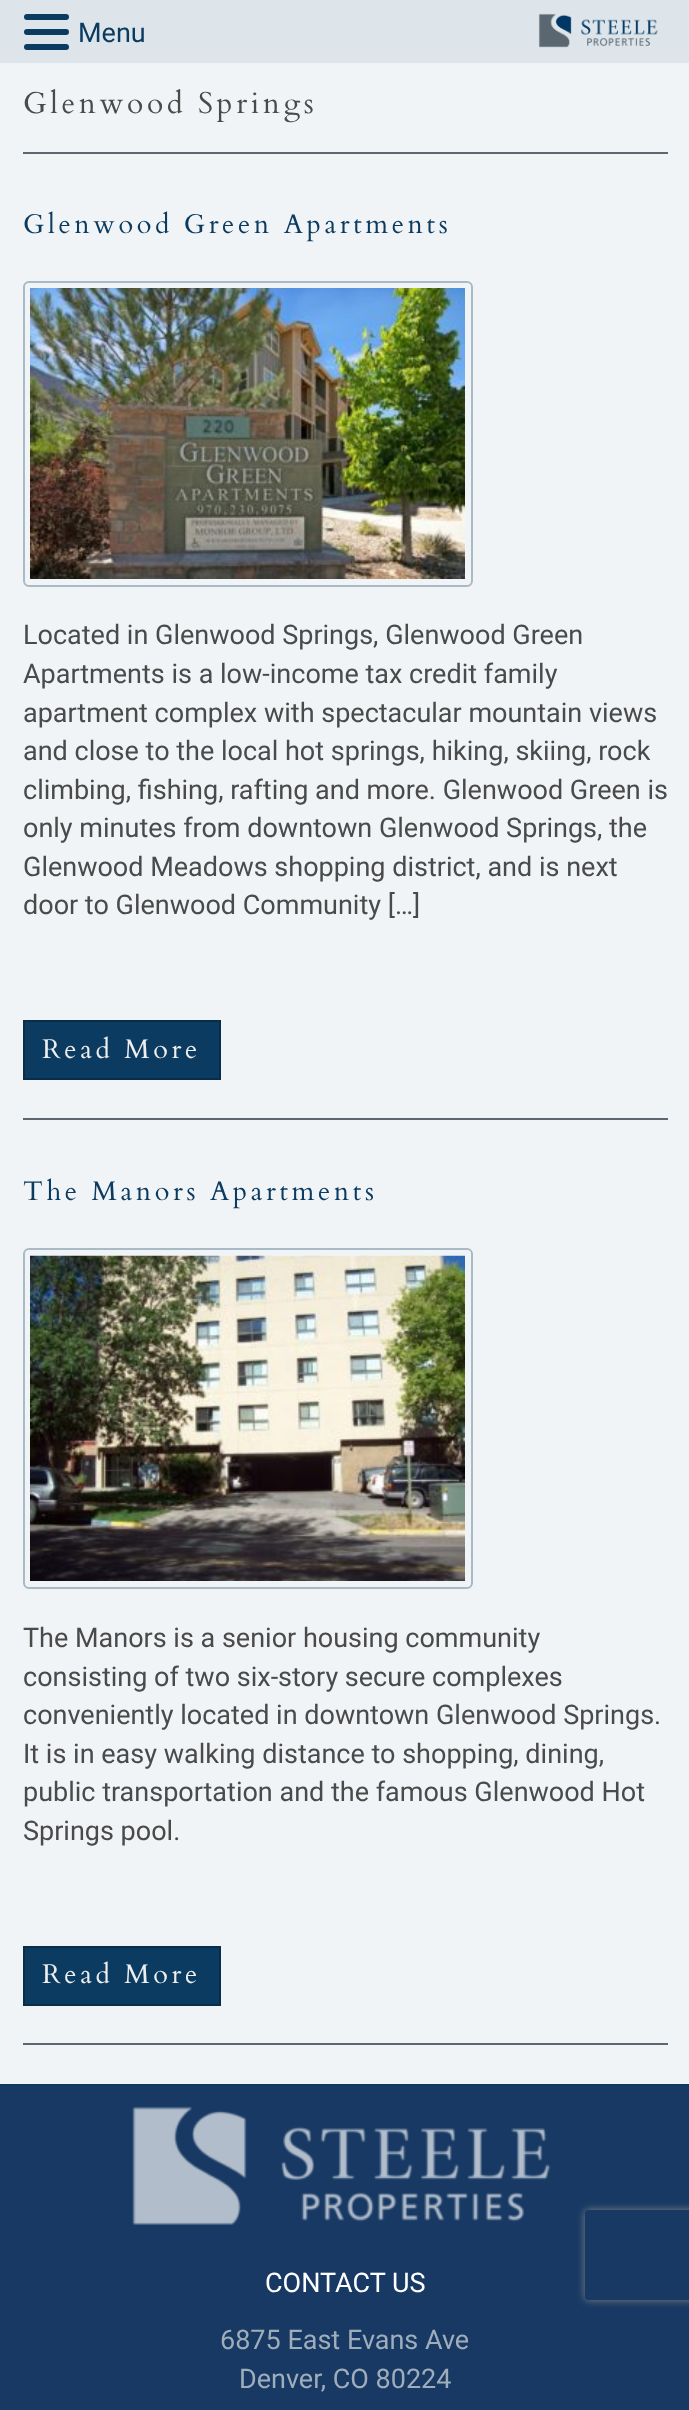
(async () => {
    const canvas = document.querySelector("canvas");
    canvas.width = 689;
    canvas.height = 2410;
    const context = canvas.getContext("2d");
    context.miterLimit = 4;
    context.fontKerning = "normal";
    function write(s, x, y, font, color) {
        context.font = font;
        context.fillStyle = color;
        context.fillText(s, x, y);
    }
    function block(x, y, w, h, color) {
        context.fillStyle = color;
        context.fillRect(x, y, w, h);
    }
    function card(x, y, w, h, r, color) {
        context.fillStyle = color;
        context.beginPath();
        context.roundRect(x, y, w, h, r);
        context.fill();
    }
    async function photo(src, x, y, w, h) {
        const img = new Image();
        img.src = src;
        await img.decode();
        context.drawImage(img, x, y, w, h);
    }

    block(0, 0, 689, 2410, "rgb(241, 244, 246)");
    block(0, 0, 689, 63, "rgb(222, 229, 234)");
    card(24, 14, 45, 6, 3, "rgb(12, 59, 96)");
    card(24, 29, 45, 6, 3, "rgb(12, 59, 96)");
    card(24, 44, 45, 6, 3, "rgb(12, 59, 96)");
    write("Menu", 78, 42, "27px Roboto", "rgb(11, 59, 96)");
    await photo("media/1.png", 538, 13, 120, 35);
    context.letterSpacing = "3.6px";
    write("Glenwood Springs", 23, 113, "30px Cardo", "rgb(74, 74, 74)");
    block(23, 152, 645, 2, "rgb(94, 103, 112)");
    write("Glenwood Green Apartments", 23, 233, "27px Cardo", "rgb(11, 59, 96)");
    context.beginPath();
    context.roundRect(24, 282, 448, 304, 5);
    context.strokeStyle = "rgb(169, 186, 199)";
    context.lineWidth = 2;
    context.stroke();
    await photo("media/2.png", 30, 288, 435, 291);
    context.letterSpacing = "0px";
    write("Located in Glenwood Springs, Glenwood Green", 23, 644, "27px Roboto", "rgb(74, 74, 74)");
    write("Apartments is a low-income tax credit family", 23, 683, "27px Roboto", "rgb(74, 74, 74)");
    write("apartment complex with spectacular mountain views", 23, 722, "27px Roboto", "rgb(74, 74, 74)");
    write("and close to the local hot springs, hiking, skiing, rock", 23, 760, "27px Roboto", "rgb(74, 74, 74)");
    write("climbing, fishing, rafting and more. Glenwood Green is", 23, 799, "27px Roboto", "rgb(74, 74, 74)");
    write("only minutes from downtown Glenwood Springs, the", 23, 837, "27px Roboto", "rgb(74, 74, 74)");
    write("Glenwood Meadows shopping district, and is next", 23, 876, "27px Roboto", "rgb(74, 74, 74)");
    write("door to Glenwood Community […]", 23, 914, "27px Roboto", "rgb(74, 74, 74)");
    context.fillStyle = "rgb(11, 59, 96)";
    context.beginPath();
    context.rect(24, 1021, 196, 58);
    context.fill();
    context.strokeStyle = "rgb(8, 45, 73)";
    context.stroke();
    context.letterSpacing = "3.6px";
    write("Read More", 42, 1058, "27px Cardo", "rgb(238, 238, 238)");
    block(23, 1118, 645, 2, "rgb(94, 103, 112)");
    write("The Manors Apartments", 23, 1200, "27px Cardo", "rgb(11, 59, 96)");
    context.beginPath();
    context.roundRect(24, 1249, 448, 339, 5);
    context.strokeStyle = "rgb(169, 186, 199)";
    context.stroke();
    await photo("media/3.png", 30, 1255, 435, 326);
    context.letterSpacing = "0px";
    write("The Manors is a senior housing community", 23, 1647, "27px Roboto", "rgb(74, 74, 74)");
    write("consisting of two six-story secure complexes", 23, 1686, "27px Roboto", "rgb(74, 74, 74)");
    write("conveniently located in downtown Glenwood Springs.", 23, 1724, "27px Roboto", "rgb(74, 74, 74)");
    write("It is in easy walking distance to shopping, dining,", 23, 1763, "27px Roboto", "rgb(74, 74, 74)");
    write("public transportation and the famous Glenwood Hot", 23, 1801, "27px Roboto", "rgb(74, 74, 74)");
    write("Springs pool.", 23, 1840, "27px Roboto", "rgb(74, 74, 74)");
    context.fillStyle = "rgb(11, 59, 96)";
    context.beginPath();
    context.rect(24, 1947, 196, 58);
    context.fill();
    context.strokeStyle = "rgb(8, 45, 73)";
    context.stroke();
    context.letterSpacing = "3.6px";
    write("Read More", 42, 1983, "27px Cardo", "rgb(238, 238, 238)");
    block(23, 2043, 645, 2, "rgb(94, 103, 112)");
    block(0, 2086, 689, 324, "rgb(23, 57, 99)");
    block(0, 2084, 689, 2, "rgb(12, 59, 96)");
    await photo("media/4.png", 132, 2106, 419, 119);
    context.letterSpacing = "0px";
    write("CONTACT US", 265, 2292, "27px Roboto", "rgb(255, 255, 255)");
    write("6875 East Evans Ave", 220, 2349, "27px Roboto", "rgb(159, 173, 186)");
    write("Denver, CO 80224", 239, 2388, "27px Roboto", "rgb(159, 173, 186)");
    context.save();
    context.beginPath();
    context.moveTo(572, 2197);
    context.lineTo(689, 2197);
    context.lineTo(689, 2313);
    context.lineTo(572, 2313);
    context.closePath();
    context.moveTo(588, 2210);
    context.lineTo(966, 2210);
    context.bezierCurveTo(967.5, 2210, 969, 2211.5, 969, 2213);
    context.lineTo(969, 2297);
    context.bezierCurveTo(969, 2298.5, 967.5, 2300, 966, 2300);
    context.lineTo(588, 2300);
    context.bezierCurveTo(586.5, 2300, 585, 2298.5, 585, 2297);
    context.lineTo(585, 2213);
    context.bezierCurveTo(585, 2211.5, 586.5, 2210, 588, 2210);
    context.closePath();
    context.clip("evenodd");
    context.fillStyle = "rgb(128, 128, 128)";
    context.filter = "blur(4px)";
    context.beginPath();
    context.roundRect(585, 2210, 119, 90, 3);
    context.fill();
    context.filter = "none";
    context.restore();
})();
